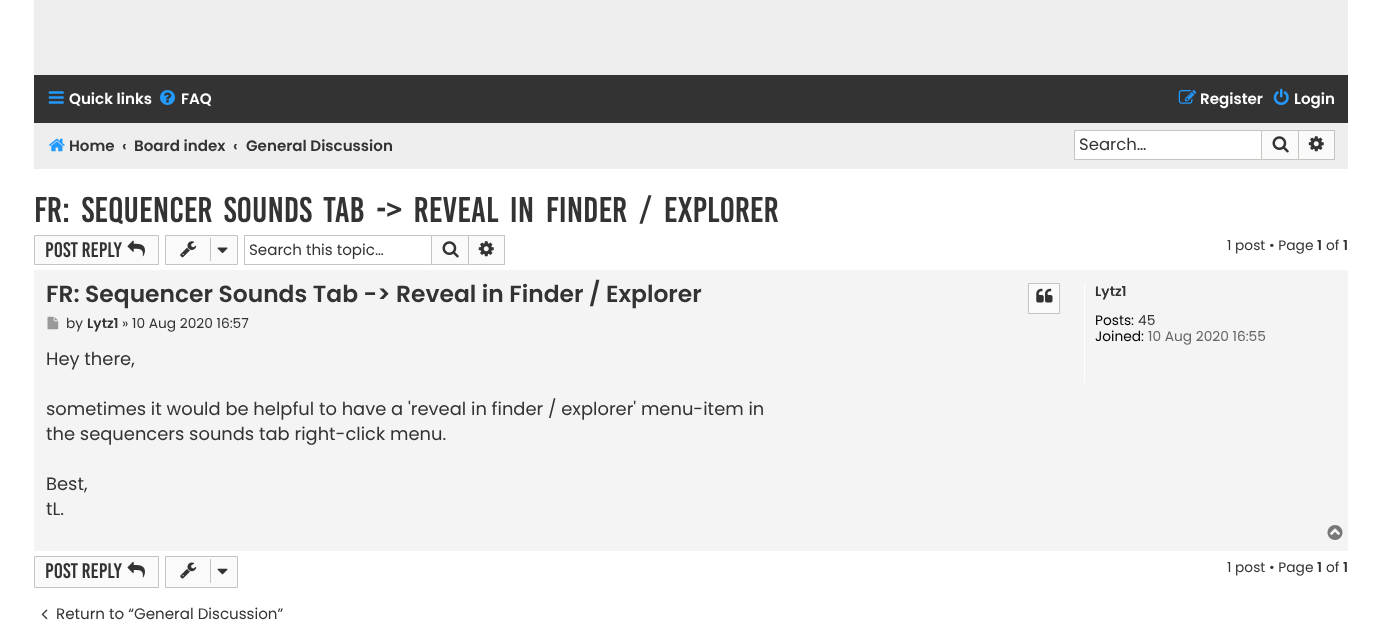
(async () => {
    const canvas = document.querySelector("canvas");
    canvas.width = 1381;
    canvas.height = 632;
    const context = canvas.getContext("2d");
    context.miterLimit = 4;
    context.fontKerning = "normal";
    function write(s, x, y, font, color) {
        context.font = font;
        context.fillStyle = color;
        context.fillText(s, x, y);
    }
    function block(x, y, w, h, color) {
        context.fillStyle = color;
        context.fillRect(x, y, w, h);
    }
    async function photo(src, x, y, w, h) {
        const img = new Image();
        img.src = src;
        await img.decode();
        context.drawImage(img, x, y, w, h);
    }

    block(0, 0, 1381, 632, "rgb(255, 255, 255)");
    block(34, 0, 1314, 75, "rgb(238, 238, 238)");
    block(34, 75, 1314, 48, "rgb(51, 51, 51)");
    await photo("media/1.png", 48, 91, 16, 13);
    write("Quick links", 69, 104, "600 15.1px Poppins", "rgb(255, 255, 255)");
    await photo("media/2.png", 160, 90, 15, 15);
    write("FAQ", 181, 104, "600 15.1px Poppins", "rgb(255, 255, 255)");
    await photo("media/3.png", 1178, 90, 19, 14);
    write("Register", 1200, 104, "600 15.1px Poppins", "rgb(255, 255, 255)");
    await photo("media/4.png", 1273, 88, 16, 17);
    write("Login", 1294, 104, "600 15.1px Poppins", "rgb(255, 255, 255)");
    block(34, 123, 1314, 46, "rgb(238, 238, 238)");
    await photo("media/5.png", 49, 138, 16, 14);
    write("Home", 69, 151, "600 15.1px Poppins", "rgb(51, 51, 51)");
    write("‹", 122, 151, "600 15.1px Poppins", "rgb(51, 51, 51)");
    write("Board index", 134, 151, "600 15.1px Poppins", "rgb(51, 51, 51)");
    write("‹", 233, 151, "600 15.1px Poppins", "rgb(51, 51, 51)");
    write("General Discussion", 246, 151, "600 15.1px Poppins", "rgb(51, 51, 51)");
    block(1075, 131, 186, 28, "rgb(255, 255, 255)");
    block(1074, 130, 187, 1, "rgb(199, 195, 191)");
    block(1074, 159, 187, 1, "rgb(199, 195, 191)");
    block(1074, 130, 1, 30, "rgb(199, 195, 191)");
    write("Search…", 1079, 150, "16.5px Poppins", "rgb(51, 51, 51)");
    context.fillStyle = "rgb(250, 250, 250)";
    context.beginPath();
    context.rect(1261.5, 130.5, 37, 29);
    context.fill();
    context.strokeStyle = "rgb(199, 195, 191)";
    context.stroke();
    await photo("media/6.png", 1272, 136, 17, 17);
    block(1299, 131, 35, 28, "rgb(250, 250, 250)");
    block(1299, 130, 36, 1, "rgb(199, 195, 191)");
    block(1334, 130, 1, 30, "rgb(199, 195, 191)");
    block(1299, 159, 36, 1, "rgb(199, 195, 191)");
    await photo("media/7.png", 1308, 136, 16, 16);
    context.wordSpacing = "5px";
    write("FR: Sequencer Sounds Tab -> Reveal in Finder / Explorer", 34, 222, "27.5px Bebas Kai", "rgb(51, 51, 51)");
    context.fillStyle = "rgb(250, 250, 250)";
    context.beginPath();
    context.rect(34.5, 235.5, 124, 29);
    context.fill();
    context.stroke();
    context.wordSpacing = "0px";
    write("Post Reply", 45, 257, "16.25px Bebas Kai", "rgb(51, 51, 51)");
    await photo("media/8.png", 127, 240, 18, 17);
    context.fillStyle = "rgb(250, 250, 250)";
    context.beginPath();
    context.rect(165.5, 235.5, 72, 29);
    context.fill();
    context.stroke();
    await photo("media/9.png", 180, 241, 17, 17);
    block(210, 238, 1, 23, "rgb(199, 195, 191)");
    await photo("media/10.png", 217, 247, 11, 7);
    block(244, 235, 187, 1, "rgb(199, 195, 191)");
    block(244, 264, 187, 1, "rgb(199, 195, 191)");
    block(244, 235, 1, 30, "rgb(199, 195, 191)");
    write("Search this topic…", 249, 255, "15.1px Poppins", "rgb(51, 51, 51)");
    context.fillStyle = "rgb(250, 250, 250)";
    context.beginPath();
    context.rect(431.5, 235.5, 37, 29);
    context.fill();
    context.stroke();
    await photo("media/6.png", 442, 241, 17, 17);
    block(469, 236, 35, 28, "rgb(250, 250, 250)");
    block(469, 235, 36, 1, "rgb(199, 195, 191)");
    block(504, 235, 1, 30, "rgb(199, 195, 191)");
    block(469, 264, 36, 1, "rgb(199, 195, 191)");
    await photo("media/7.png", 478, 241, 16, 16);
    write("1 post • Page", 1227, 250, "13.75px Poppins", "rgb(51, 51, 51)");
    write("1", 1317, 250, "600 13.75px Poppins", "rgb(51, 51, 51)");
    write("of", 1326, 250, "13.75px Poppins", "rgb(51, 51, 51)");
    write("1", 1343, 250, "600 13.75px Poppins", "rgb(51, 51, 51)");
    block(34, 270, 1314, 281, "rgb(244, 244, 244)");
    write("FR: Sequencer Sounds Tab -> Reveal in Finder / Explorer", 46, 302, "600 23.4px Poppins", "rgb(51, 51, 51)");
    context.fillStyle = "rgb(250, 250, 250)";
    context.beginPath();
    context.rect(1028.5, 283.5, 31, 30);
    context.fill();
    context.stroke();
    await photo("media/11.png", 1036, 288, 17, 15);
    await photo("media/12.png", 47, 316, 12, 14);
    write("by", 66, 328, "13.75px Poppins", "rgb(51, 51, 51)");
    write("Lytz1", 87, 328, "600 13.75px Poppins", "rgb(51, 51, 51)");
    write("» 10 Aug 2020 16:57", 122, 328, "13.75px Poppins", "rgb(51, 51, 51)");
    write("Hey there,", 46, 365, "17.9px Poppins", "rgb(51, 51, 51)");
    write("sometimes it would be helpful to have a 'reveal in finder / explorer' menu-item in", 46, 415, "17.9px Poppins", "rgb(51, 51, 51)");
    write("the sequencers sounds tab right-click menu.", 46, 440, "17.9px Poppins", "rgb(51, 51, 51)");
    write("Best,", 46, 490, "17.9px Poppins", "rgb(51, 51, 51)");
    write("tL.", 46, 515, "17.9px Poppins", "rgb(51, 51, 51)");
    block(1084, 283, 1, 100, "rgb(255, 255, 255)");
    write("Lytz1", 1095, 296, "600 13.75px Poppins", "rgb(51, 51, 51)");
    write("Posts:", 1095, 325, "13.75px Poppins", "rgb(0, 0, 0)");
    write("45", 1138, 325, "13.75px Poppins", "rgb(51, 51, 51)");
    write("Joined:", 1095, 341, "13.75px Poppins", "rgb(0, 0, 0)");
    write("10 Aug 2020 16:55", 1148, 341, "13.75px Poppins", "rgb(102, 102, 102)");
    await photo("media/13.png", 1327, 525, 16, 15);
    context.fillStyle = "rgb(250, 250, 250)";
    context.beginPath();
    context.rect(34.5, 556.5, 124, 31);
    context.fill();
    context.stroke();
    write("Post Reply", 45, 578, "16.25px Bebas Kai", "rgb(51, 51, 51)");
    await photo("media/14.png", 127, 561, 18, 17);
    context.fillStyle = "rgb(250, 250, 250)";
    context.beginPath();
    context.rect(165.5, 556.5, 72, 31);
    context.fill();
    context.stroke();
    await photo("media/15.png", 180, 562, 17, 17);
    block(210, 559, 1, 24, "rgb(199, 195, 191)");
    await photo("media/16.png", 217, 568, 11, 7);
    write("1 post • Page", 1227, 572, "13.75px Poppins", "rgb(51, 51, 51)");
    write("1", 1317, 572, "600 13.75px Poppins", "rgb(51, 51, 51)");
    write("of", 1326, 572, "13.75px Poppins", "rgb(51, 51, 51)");
    write("1", 1343, 572, "600 13.75px Poppins", "rgb(51, 51, 51)");
    await photo("media/17.png", 41, 609, 7, 11);
    write("Return to “General Discussion”", 56, 619, "15.1px Poppins", "rgb(51, 51, 51)");
})();
